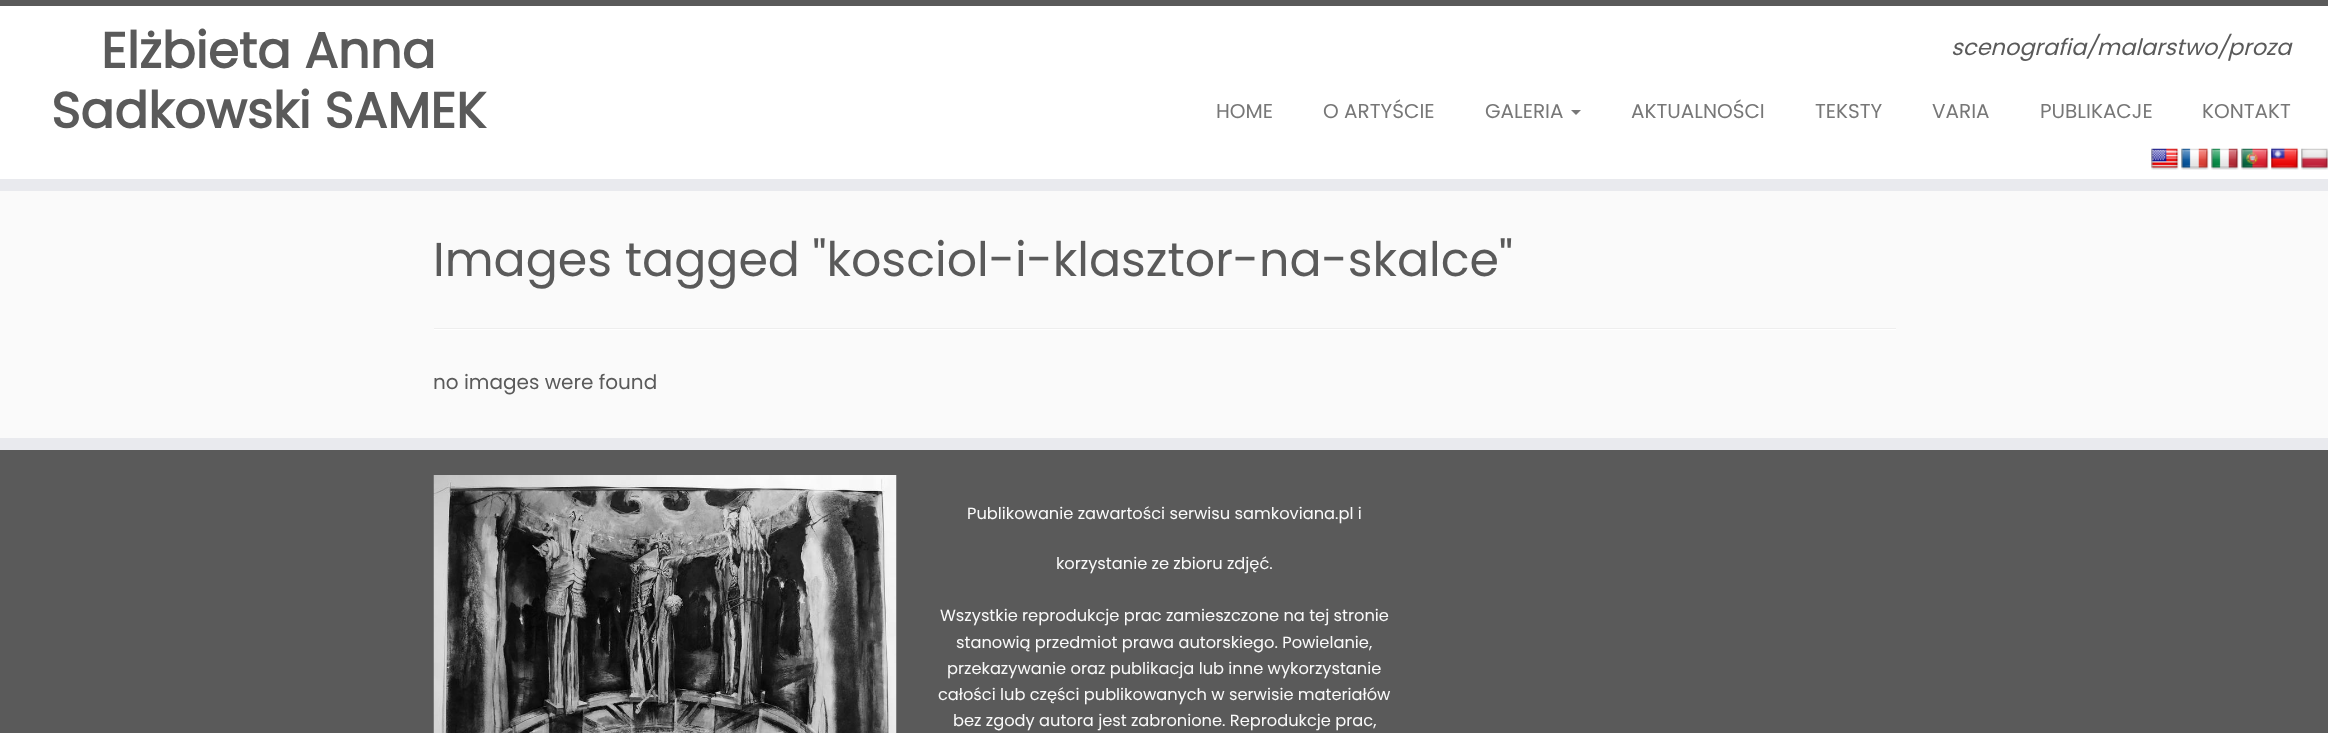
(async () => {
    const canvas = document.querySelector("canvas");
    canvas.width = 2328;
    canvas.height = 733;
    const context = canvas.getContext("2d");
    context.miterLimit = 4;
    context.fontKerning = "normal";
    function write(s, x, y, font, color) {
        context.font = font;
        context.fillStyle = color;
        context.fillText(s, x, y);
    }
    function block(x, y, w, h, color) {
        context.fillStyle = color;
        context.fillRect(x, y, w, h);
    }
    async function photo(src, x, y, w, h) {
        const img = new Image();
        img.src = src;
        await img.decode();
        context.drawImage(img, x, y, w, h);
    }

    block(0, 0, 2328, 733, "rgb(250, 250, 250)");
    block(0, 6, 2328, 173, "rgb(255, 255, 255)");
    block(0, 0, 2328, 6, "rgb(90, 90, 90)");
    block(0, 179, 2328, 12, "rgb(233, 234, 238)");
    write("Elżbieta Anna", 101, 68, "bold 50px Poppins", "rgb(90, 90, 90)");
    write("Sadkowski SAMEK", 51, 128, "bold 50px Poppins", "rgb(90, 90, 90)");
    write("scenografia/malarstwo/proza", 1951, 55, "italic 22.5px Poppins", "rgb(90, 90, 90)");
    write("HOME", 1216, 118, "20px Poppins", "rgb(119, 119, 119)");
    write("O ARTYŚCIE", 1323, 118, "20px Poppins", "rgb(119, 119, 119)");
    write("GALERIA", 1485, 118, "20px Poppins", "rgb(119, 119, 119)");
    context.beginPath();
    context.moveTo(1571, 110);
    context.lineTo(1581, 110);
    context.lineTo(1576, 115);
    context.closePath();
    context.fill();
    write("AKTUALNOŚCI", 1631, 118, "20px Poppins", "rgb(119, 119, 119)");
    write("TEKSTY", 1815, 118, "20px Poppins", "rgb(119, 119, 119)");
    write("VARIA", 1932, 118, "20px Poppins", "rgb(119, 119, 119)");
    write("PUBLIKACJE", 2040, 118, "20px Poppins", "rgb(119, 119, 119)");
    write("KONTAKT", 2202, 118, "20px Poppins", "rgb(119, 119, 119)");
    await photo("media/1.png", 2151, 148, 28, 22);
    await photo("media/2.png", 2181, 148, 28, 22);
    await photo("media/3.png", 2211, 148, 28, 22);
    await photo("media/4.png", 2241, 148, 28, 22);
    await photo("media/5.png", 2271, 147, 28, 23);
    await photo("media/6.png", 2301, 148, 27, 22);
    write("Images tagged \"kosciol-i-klasztor-na-skalce\"", 433, 276, "47.5px Poppins", "rgb(90, 90, 90)");
    block(434, 328, 1462, 1, "rgb(238, 238, 238)");
    block(434, 329, 1462, 1, "rgb(255, 255, 255)");
    write("no images were found", 433, 389, "20px Poppins", "rgb(90, 90, 90)");
    block(0, 450, 2328, 283, "rgb(90, 90, 90)");
    block(0, 438, 2328, 12, "rgb(233, 234, 238)");
    await photo("media/7.png", 433, 475, 464, 258);
    write("Publikowanie zawartości serwisu samkoviana.pl i", 967, 519, "16.25px Poppins", "rgb(250, 250, 250)");
    write("korzystanie ze zbioru zdjęć.", 1056, 569, "16.25px Poppins", "rgb(250, 250, 250)");
    write("Wszystkie reprodukcje prac zamieszczone na tej stronie", 940, 621, "16.25px Poppins", "rgb(250, 250, 250)");
    write("stanowią przedmiot prawa autorskiego. Powielanie,", 956, 648, "16.25px Poppins", "rgb(250, 250, 250)");
    write("przekazywanie oraz publikacja lub inne wykorzystanie", 947, 674, "16.25px Poppins", "rgb(250, 250, 250)");
    write("całości lub części publikowanych w serwisie materiałów", 938, 700, "16.25px Poppins", "rgb(250, 250, 250)");
    write("bez zgody autora jest zabronione. Reprodukcje prac,", 953, 726, "16.25px Poppins", "rgb(250, 250, 250)");
})();
